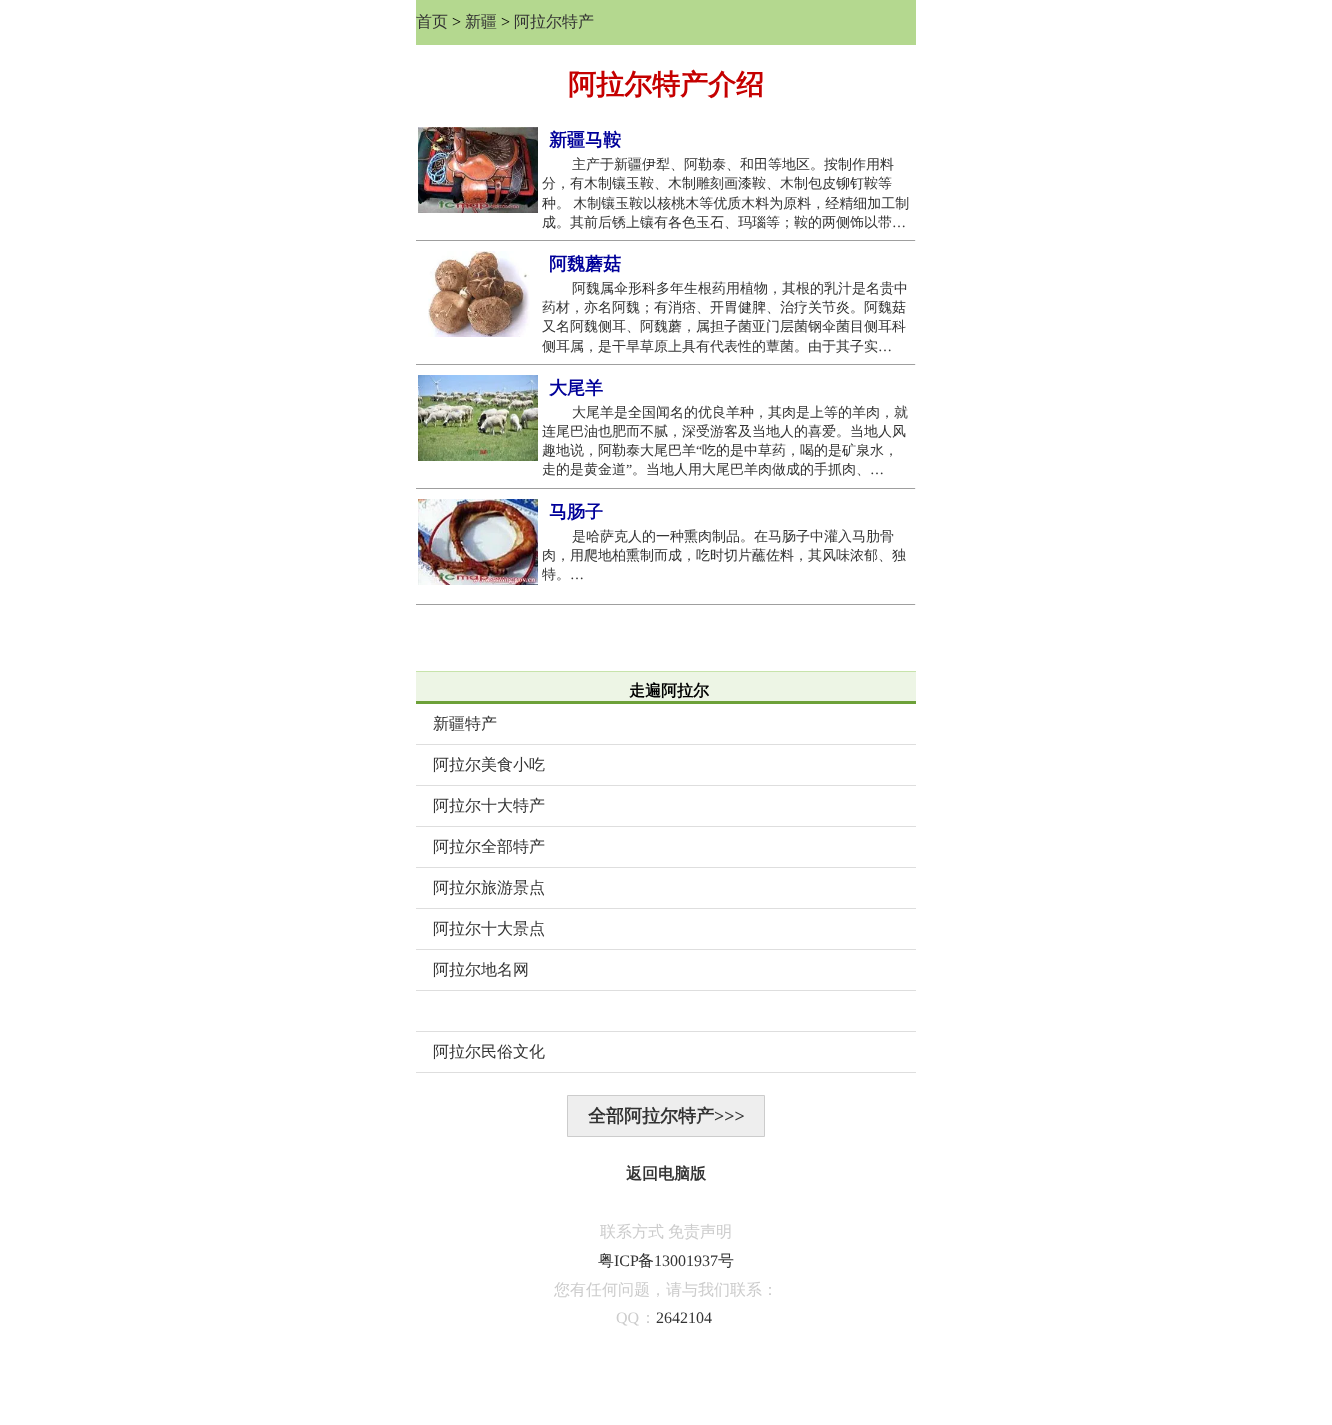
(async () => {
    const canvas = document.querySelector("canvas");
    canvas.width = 1332;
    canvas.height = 1425;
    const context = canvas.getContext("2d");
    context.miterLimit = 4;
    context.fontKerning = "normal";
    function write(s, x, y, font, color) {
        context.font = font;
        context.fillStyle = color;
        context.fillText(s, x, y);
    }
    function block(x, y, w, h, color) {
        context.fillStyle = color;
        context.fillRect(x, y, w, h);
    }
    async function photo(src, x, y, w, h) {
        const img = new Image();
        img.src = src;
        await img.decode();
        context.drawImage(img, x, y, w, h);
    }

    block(0, 0, 1332, 1425, "rgb(255, 255, 255)");
    block(416, 0, 500, 45, "rgb(180, 216, 143)");
    write("首页", 416, 27, "500 16px WenQuanYi Zen Hei", "rgb(51, 51, 51)");
    write(">", 452, 27, "16px Liberation Serif", "rgb(0, 0, 0)");
    write("新疆", 465, 27, "500 16px WenQuanYi Zen Hei", "rgb(51, 51, 51)");
    write(">", 501, 27, "16px Liberation Serif", "rgb(0, 0, 0)");
    write("阿拉尔特产", 514, 27, "500 16px WenQuanYi Zen Hei", "rgb(51, 51, 51)");
    write("阿拉尔特产介绍", 568, 94, "bold 28px WenQuanYi Zen Hei", "rgb(197, 0, 0)");
    await photo("media/1.png", 418, 127, 120, 86);
    write("新疆马鞍", 549, 146, "bold 18px WenQuanYi Zen Hei", "rgb(0, 0, 153)");
    write("主产于新疆伊犁、阿勒泰、和田等地区。按制作用料", 572, 169, "500 14px WenQuanYi Zen Hei", "rgb(51, 51, 51)");
    write("分，有木制镶玉鞍、木制雕刻画漆鞍、木制包皮铆钉鞍等", 542, 188, "500 14px WenQuanYi Zen Hei", "rgb(51, 51, 51)");
    context.wordSpacing = "-1px";
    write("种。 木制镶玉鞍以核桃木等优质木料为原料，经精细加工制", 542, 208, "500 14px WenQuanYi Zen Hei", "rgb(51, 51, 51)");
    context.wordSpacing = "0px";
    write("成。其前后锈上镶有各色玉石、玛瑙等；鞍的两侧饰以带", 542, 227, "500 14px WenQuanYi Zen Hei", "rgb(51, 51, 51)");
    write("…", 892, 227, "14px Liberation Serif", "rgb(51, 51, 51)");
    block(416, 240, 500, 1, "rgb(159, 159, 159)");
    block(915, 240, 1, 1, "rgb(238, 238, 238)");
    await photo("media/2.png", 428, 251, 102, 86);
    write("阿魏蘑菇", 549, 270, "bold 18px WenQuanYi Zen Hei", "rgb(0, 0, 153)");
    write("阿魏属伞形科多年生根药用植物，其根的乳汁是名贵中", 572, 293, "500 14px WenQuanYi Zen Hei", "rgb(51, 51, 51)");
    write("药材，亦名阿魏；有消痞、开胃健脾、治疗关节炎。阿魏菇", 542, 312, "500 14px WenQuanYi Zen Hei", "rgb(51, 51, 51)");
    write("又名阿魏侧耳、阿魏蘑，属担子菌亚门层菌钢伞菌目侧耳科", 542, 331, "500 14px WenQuanYi Zen Hei", "rgb(51, 51, 51)");
    write("侧耳属，是干旱草原上具有代表性的蕈菌。由于其子实", 542, 351, "500 14px WenQuanYi Zen Hei", "rgb(51, 51, 51)");
    write("…", 878, 351, "14px Liberation Serif", "rgb(51, 51, 51)");
    block(416, 364, 500, 1, "rgb(159, 159, 159)");
    block(915, 364, 1, 1, "rgb(238, 238, 238)");
    await photo("media/3.png", 418, 375, 120, 86);
    write("大尾羊", 549, 394, "bold 18px WenQuanYi Zen Hei", "rgb(0, 0, 153)");
    write("大尾羊是全国闻名的优良羊种，其肉是上等的羊肉，就", 572, 417, "500 14px WenQuanYi Zen Hei", "rgb(51, 51, 51)");
    write("连尾巴油也肥而不腻，深受游客及当地人的喜爱。当地人风", 542, 436, "500 14px WenQuanYi Zen Hei", "rgb(51, 51, 51)");
    write("趣地说，阿勒泰大尾巴羊", 542, 455, "500 14px WenQuanYi Zen Hei", "rgb(51, 51, 51)");
    write("“", 696, 455, "14px Liberation Serif", "rgb(51, 51, 51)");
    write("吃的是中草药，喝的是矿泉水，", 702, 455, "500 14px WenQuanYi Zen Hei", "rgb(51, 51, 51)");
    write("走的是黄金道", 542, 474, "500 14px WenQuanYi Zen Hei", "rgb(51, 51, 51)");
    write("”", 626, 474, "14px Liberation Serif", "rgb(51, 51, 51)");
    write("。当地人用大尾巴羊肉做成的手抓肉、", 632, 474, "500 14px WenQuanYi Zen Hei", "rgb(51, 51, 51)");
    write("…", 870, 474, "14px Liberation Serif", "rgb(51, 51, 51)");
    block(416, 488, 500, 1, "rgb(159, 159, 159)");
    block(915, 488, 1, 1, "rgb(238, 238, 238)");
    await photo("media/4.png", 418, 499, 120, 86);
    write("马肠子", 549, 518, "bold 18px WenQuanYi Zen Hei", "rgb(0, 0, 153)");
    write("是哈萨克人的一种熏肉制品。在马肠子中灌入马肋骨", 572, 541, "500 14px WenQuanYi Zen Hei", "rgb(51, 51, 51)");
    write("肉，用爬地柏熏制而成，吃时切片蘸佐料，其风味浓郁、独", 542, 560, "500 14px WenQuanYi Zen Hei", "rgb(51, 51, 51)");
    write("特。", 542, 579, "500 14px WenQuanYi Zen Hei", "rgb(51, 51, 51)");
    write("…", 570, 579, "14px Liberation Serif", "rgb(51, 51, 51)");
    block(416, 604, 500, 1, "rgb(159, 159, 159)");
    block(915, 604, 1, 1, "rgb(238, 238, 238)");
    block(416, 672, 500, 29, "rgb(237, 245, 229)");
    block(416, 671, 500, 1, "rgb(199, 227, 171)");
    block(416, 701, 500, 3, "rgb(109, 161, 57)");
    write("走遍阿拉尔", 629, 696, "bold 16px WenQuanYi Zen Hei", "rgb(0, 0, 0)");
    block(416, 744, 500, 1, "rgb(222, 222, 222)");
    write("新疆特产", 433, 729, "500 16px WenQuanYi Zen Hei", "rgb(51, 51, 51)");
    block(416, 785, 500, 1, "rgb(222, 222, 222)");
    write("阿拉尔美食小吃", 433, 770, "500 16px WenQuanYi Zen Hei", "rgb(51, 51, 51)");
    block(416, 826, 500, 1, "rgb(222, 222, 222)");
    write("阿拉尔十大特产", 433, 811, "500 16px WenQuanYi Zen Hei", "rgb(51, 51, 51)");
    block(416, 867, 500, 1, "rgb(222, 222, 222)");
    write("阿拉尔全部特产", 433, 852, "500 16px WenQuanYi Zen Hei", "rgb(51, 51, 51)");
    block(416, 908, 500, 1, "rgb(222, 222, 222)");
    write("阿拉尔旅游景点", 433, 893, "500 16px WenQuanYi Zen Hei", "rgb(51, 51, 51)");
    block(416, 949, 500, 1, "rgb(222, 222, 222)");
    write("阿拉尔十大景点", 433, 934, "500 16px WenQuanYi Zen Hei", "rgb(51, 51, 51)");
    block(416, 990, 500, 1, "rgb(222, 222, 222)");
    write("阿拉尔地名网", 433, 975, "500 16px WenQuanYi Zen Hei", "rgb(51, 51, 51)");
    block(416, 1031, 500, 1, "rgb(222, 222, 222)");
    block(416, 1072, 500, 1, "rgb(222, 222, 222)");
    write("阿拉尔民俗文化", 433, 1057, "500 16px WenQuanYi Zen Hei", "rgb(51, 51, 51)");
    context.fillStyle = "rgb(238, 238, 238)";
    context.beginPath();
    context.rect(567.5, 1095.5, 197, 41);
    context.fill();
    context.strokeStyle = "rgb(204, 204, 204)";
    context.stroke();
    write("全部阿拉尔特产", 588, 1122, "bold 18px WenQuanYi Zen Hei", "rgb(51, 51, 51)");
    write(">>>", 714, 1122, "bold 18px Liberation Serif", "rgb(51, 51, 51)");
    write("返回电脑版", 626, 1179, "bold 16px WenQuanYi Zen Hei", "rgb(51, 51, 51)");
    write("联系方式", 600, 1237, "500 16px WenQuanYi Zen Hei", "rgb(204, 204, 204)");
    write("免责声明", 668, 1237, "500 16px WenQuanYi Zen Hei", "rgb(204, 204, 204)");
    write("粤", 598, 1266, "500 16px WenQuanYi Zen Hei", "rgb(51, 51, 51)");
    write("ICP", 614, 1266, "16px Liberation Serif", "rgb(51, 51, 51)");
    write("备", 638, 1266, "500 16px WenQuanYi Zen Hei", "rgb(51, 51, 51)");
    write("13001937", 654, 1266, "16px Liberation Serif", "rgb(51, 51, 51)");
    write("号", 718, 1266, "500 16px WenQuanYi Zen Hei", "rgb(51, 51, 51)");
    write("您有任何问题，请与我们联系：", 554, 1295, "500 16px WenQuanYi Zen Hei", "rgb(204, 204, 204)");
    write("QQ", 616, 1323, "16px Liberation Serif", "rgb(204, 204, 204)");
    write("：", 640, 1323, "500 16px WenQuanYi Zen Hei", "rgb(204, 204, 204)");
    write("2642104", 656, 1323, "16px Liberation Serif", "rgb(51, 51, 51)");
})();
